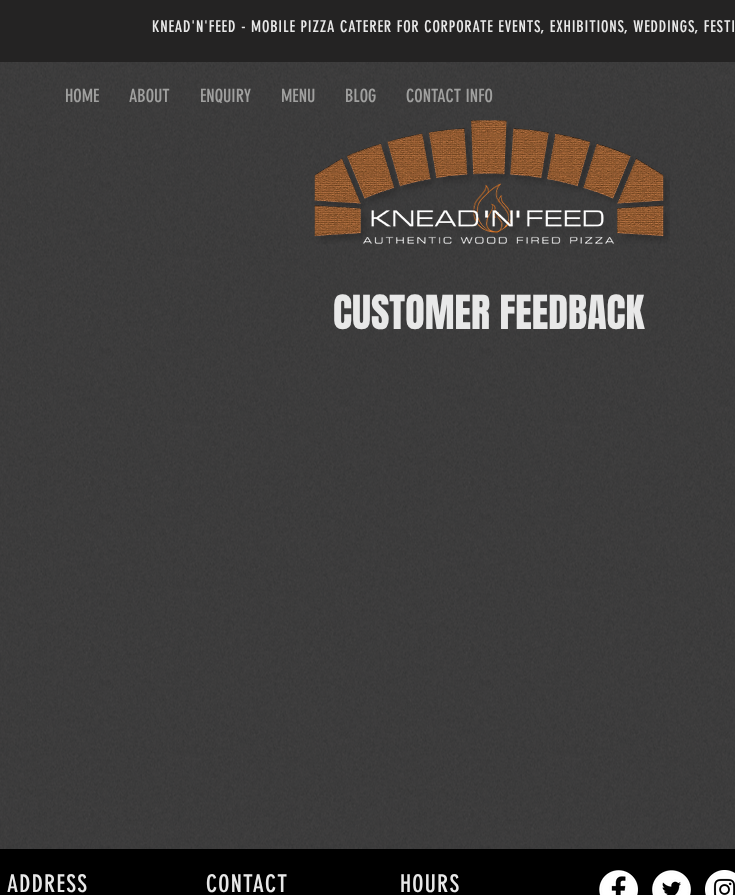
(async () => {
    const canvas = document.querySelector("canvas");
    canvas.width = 735;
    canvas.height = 895;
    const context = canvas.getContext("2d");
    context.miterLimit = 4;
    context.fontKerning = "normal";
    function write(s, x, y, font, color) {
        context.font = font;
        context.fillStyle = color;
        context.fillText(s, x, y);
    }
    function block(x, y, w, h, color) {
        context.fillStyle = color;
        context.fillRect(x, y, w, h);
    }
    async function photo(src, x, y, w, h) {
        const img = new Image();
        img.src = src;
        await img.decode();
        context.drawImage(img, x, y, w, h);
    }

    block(0, 0, 735, 895, "rgb(255, 255, 255)");
    block(0, 0, 735, 62, "rgb(36, 35, 35)");
    context.letterSpacing = "0.8px";
    write("KNEAD'N'FEED - MOBILE PIZZA CATERER FOR CORPORATE EVENTS, EXHIBITIONS, WEDDINGS, FESTI", 152, 32, "16px 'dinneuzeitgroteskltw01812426'", "rgb(232, 232, 232)");
    await photo("media/5.png", 0, 62, 735, 787);
    context.letterSpacing = "0px";
    write("HOME", 65, 102, "18px 'dinneuzeitgroteskltw01812426'", "rgb(160, 160, 159)");
    write("ABOUT", 129, 102, "18px 'dinneuzeitgroteskltw01812426'", "rgb(160, 160, 159)");
    write("ENQUIRY", 200, 102, "18px 'dinneuzeitgroteskltw01812426'", "rgb(160, 160, 159)");
    write("MENU", 281, 102, "18px 'dinneuzeitgroteskltw01812426'", "rgb(160, 160, 159)");
    write("BLOG", 345, 102, "18px 'dinneuzeitgroteskltw01812426'", "rgb(160, 160, 159)");
    write("CONTACT INFO", 406, 102, "18px 'dinneuzeitgroteskltw01812426'", "rgb(160, 160, 159)");
    await photo("media/1.png", 314, 120, 356, 124);
    write("CUSTOMER FEEDBACK", 333, 329, "40px Anton", "rgb(232, 232, 232)");
    block(0, 849, 735, 46, "rgb(0, 0, 0)");
    context.letterSpacing = "1.25px";
    write("ADDRESS", 7, 892, "24px 'dinneuzeitgroteskltw01812426'", "rgb(232, 232, 232)");
    write("CONTACT", 206, 892, "24px 'dinneuzeitgroteskltw01812426'", "rgb(232, 232, 232)");
    write("HOURS", 400, 892, "24px 'dinneuzeitgroteskltw01812426'", "rgb(232, 232, 232)");
    await photo("media/2.png", 599, 870, 39, 25);
    await photo("media/3.png", 652, 870, 39, 25);
    await photo("media/4.png", 705, 870, 30, 25);
})();
